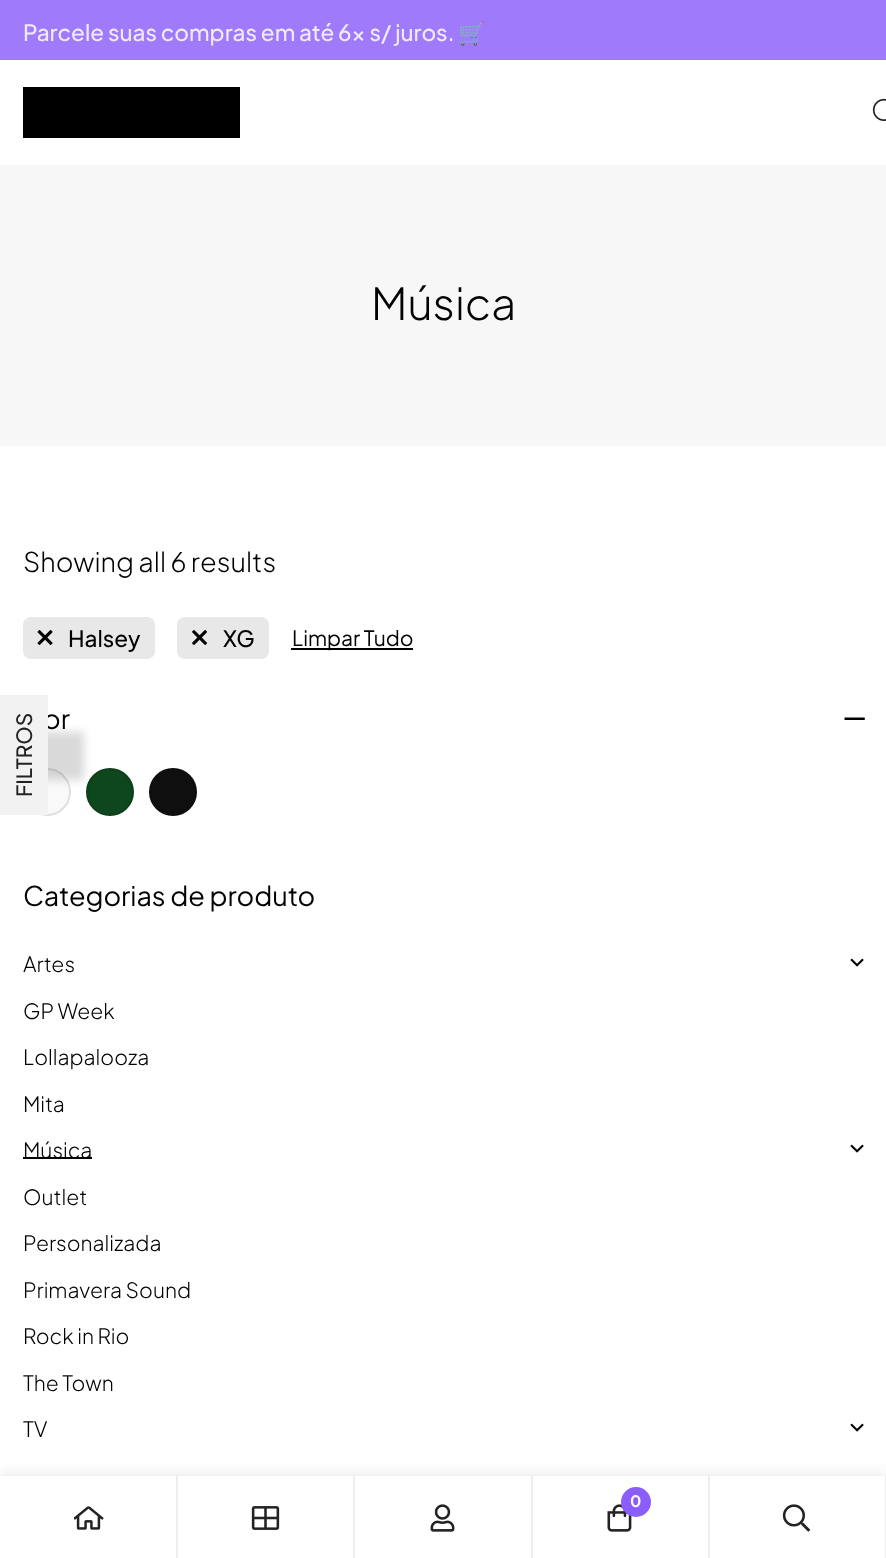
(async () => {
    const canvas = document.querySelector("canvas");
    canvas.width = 886;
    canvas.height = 1558;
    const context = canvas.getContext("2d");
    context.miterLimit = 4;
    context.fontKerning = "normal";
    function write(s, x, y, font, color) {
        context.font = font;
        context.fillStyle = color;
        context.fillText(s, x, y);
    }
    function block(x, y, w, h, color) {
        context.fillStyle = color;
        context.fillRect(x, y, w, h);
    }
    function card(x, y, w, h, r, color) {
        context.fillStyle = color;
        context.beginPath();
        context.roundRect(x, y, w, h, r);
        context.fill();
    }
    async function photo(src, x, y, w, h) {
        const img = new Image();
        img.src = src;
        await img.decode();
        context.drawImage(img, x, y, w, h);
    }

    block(0, 0, 886, 1558, "rgb(255, 255, 255)");
    block(0, 0, 886, 60, "rgb(159, 123, 252)");
    write("Parcele suas compras em até 6x s/ juros.", 23, 41, "500 22.5px Plus Jakarta Sans", "rgb(241, 234, 245)");
    write("🛒", 458, 41, "22.5px Noto Color Emoji", "rgb(241, 234, 245)");
    block(23, 87, 217, 51, "rgb(0, 0, 0)");
    await photo("media/1.png", 872, 98, 14, 23);
    block(0, 165, 886, 281, "rgb(247, 247, 247)");
    write("Música", 371, 320, "300 44px Plus Jakarta Sans", "rgb(2, 2, 2)");
    write("Showing all 6 results", 23, 572, "300 27px Plus Jakarta Sans", "rgb(2, 2, 2)");
    card(23, 617, 132, 42, 8, "rgb(232, 232, 232)");
    await photo("media/2.png", 37, 630, 16, 15);
    write("Halsey", 68, 647, "500 22.5px Plus Jakarta Sans", "rgb(2, 2, 2)");
    card(177, 617, 92, 42, 8, "rgb(232, 232, 232)");
    await photo("media/3.png", 192, 630, 15, 15);
    write("XG", 223, 647, "500 22.5px Plus Jakarta Sans", "rgb(2, 2, 2)");
    block(291, 648, 122, 2, "rgb(2, 2, 2)");
    write("Limpar Tudo", 292, 646, "21px Plus Jakarta Sans", "rgb(2, 2, 2)");
    context.fillStyle = "rgb(249, 249, 249)";
    context.beginPath();
    context.arc(47, 792, 24, 0, Math.PI * 2);
    context.fill();
    context.beginPath();
    context.arc(47, 792, 23, 0, Math.PI * 2);
    context.strokeStyle = "rgba(0, 0, 0, 0.1)";
    context.lineWidth = 2;
    context.stroke();
    context.fillStyle = "rgb(14, 71, 29)";
    context.beginPath();
    context.arc(110, 792, 24, 0, Math.PI * 2);
    context.fill();
    context.beginPath();
    context.arc(110, 792, 23, 0, Math.PI * 2);
    context.stroke();
    context.fillStyle = "rgba(0, 0, 0, 0.15)";
    context.filter = "blur(4px)";
    context.beginPath();
    context.rect(-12, 732, 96, 48);
    context.fill();
    context.filter = "none";
    write("or", 43, 729, "27px Plus Jakarta Sans", "rgb(2, 2, 2)");
    block(0, 695, 48, 120, "rgb(242, 242, 242)");
    context.font = "500 21px Plus Jakarta Sans";
    context.fillStyle = "rgb(35, 35, 35)";
    context.save();
    context.translate(32, 797);
    context.rotate(-90 * Math.PI / 180);
    context.fillText("FILTROS", 0, 0);
    context.restore();
    context.fillStyle = "rgb(0, 0, 0)";
    context.beginPath();
    context.moveTo(864.5, 717.5);
    context.bezierCurveTo(865, 717.5, 865, 720, 864.5, 720);
    context.lineTo(844.5, 720);
    context.lineTo(844.5, 718);
    context.lineTo(844.5, 717.5);
    context.closePath();
    context.fill();
    context.fillStyle = "rgb(15, 15, 15)";
    context.beginPath();
    context.arc(173, 792, 24, 0, Math.PI * 2);
    context.fill();
    context.beginPath();
    context.arc(173, 792, 23, 0, Math.PI * 2);
    context.stroke();
    write("Categorias de produto", 23, 906, "27px Plus Jakarta Sans", "rgb(2, 2, 2)");
    write("Artes", 23, 972, "300 21px Plus Jakarta Sans", "rgb(2, 2, 2)");
    await photo("media/4.png", 850, 958, 14, 9);
    write("GP Week", 23, 1019, "300 21px Plus Jakarta Sans", "rgb(2, 2, 2)");
    write("Lollapalooza", 23, 1065, "300 21px Plus Jakarta Sans", "rgb(2, 2, 2)");
    write("Mita", 23, 1112, "300 21px Plus Jakarta Sans", "rgb(2, 2, 2)");
    write("Música", 23, 1158, "300 21px Plus Jakarta Sans", "rgb(2, 2, 2)");
    block(23, 1157, 69, 2, "rgb(0, 0, 0)");
    await photo("media/4.png", 850, 1144, 14, 9);
    write("Outlet", 23, 1205, "300 21px Plus Jakarta Sans", "rgb(2, 2, 2)");
    write("Personalizada", 23, 1251, "300 21px Plus Jakarta Sans", "rgb(2, 2, 2)");
    write("Primavera Sound", 23, 1298, "300 21px Plus Jakarta Sans", "rgb(2, 2, 2)");
    write("Rock in Rio", 23, 1344, "300 21px Plus Jakarta Sans", "rgb(2, 2, 2)");
    write("The Town", 23, 1391, "300 21px Plus Jakarta Sans", "rgb(2, 2, 2)");
    write("TV", 23, 1437, "300 21px Plus Jakarta Sans", "rgb(2, 2, 2)");
    await photo("media/4.png", 850, 1423, 14, 9);
    context.fillStyle = "rgba(0, 0, 0, 0.11)";
    context.filter = "blur(7.5px)";
    context.beginPath();
    context.rect(0, 1476, 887, 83);
    context.fill();
    context.filter = "none";
    block(0, 1476, 885, 82, "rgb(255, 255, 255)");
    block(176, 1476, 2, 82, "rgb(238, 238, 238)");
    await photo("media/5.png", 74, 1506, 30, 24);
    block(353, 1476, 2, 82, "rgb(238, 238, 238)");
    await photo("media/6.png", 251, 1506, 29, 24);
    block(531, 1476, 2, 82, "rgb(238, 238, 238)");
    await photo("media/7.png", 430, 1504, 25, 28);
    block(708, 1476, 2, 82, "rgb(238, 238, 238)");
    await photo("media/8.png", 607, 1504, 25, 28);
    context.fillStyle = "rgb(138, 93, 252)";
    context.beginPath();
    context.arc(636, 1502, 15, 0, Math.PI * 2);
    context.fill();
    write("0", 630, 1507, "bold 16px Plus Jakarta Sans", "rgb(255, 255, 255)");
    block(885, 1476, 1, 82, "rgb(238, 238, 238)");
    await photo("media/9.png", 782, 1504, 29, 28);
})();
